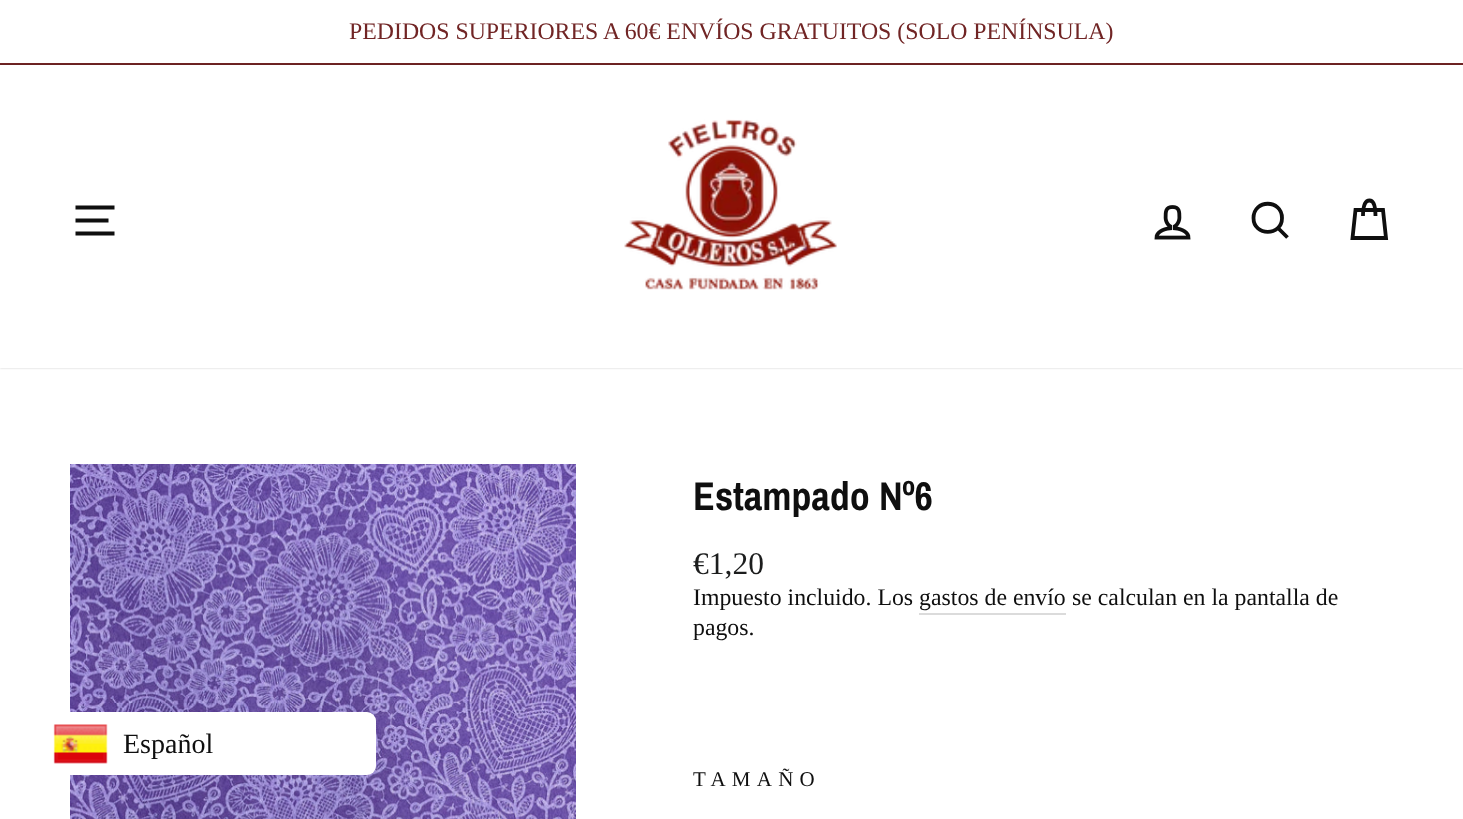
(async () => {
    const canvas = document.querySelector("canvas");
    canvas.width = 1463;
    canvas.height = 819;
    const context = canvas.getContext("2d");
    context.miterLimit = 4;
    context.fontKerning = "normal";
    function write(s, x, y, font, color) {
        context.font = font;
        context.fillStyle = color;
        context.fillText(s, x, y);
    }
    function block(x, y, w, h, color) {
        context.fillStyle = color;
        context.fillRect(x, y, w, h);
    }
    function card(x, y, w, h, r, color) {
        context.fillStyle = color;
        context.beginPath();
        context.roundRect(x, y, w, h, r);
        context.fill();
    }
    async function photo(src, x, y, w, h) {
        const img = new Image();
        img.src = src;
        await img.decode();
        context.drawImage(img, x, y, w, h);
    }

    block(0, 0, 1463, 819, "rgb(255, 255, 255)");
    await photo("media/4.png", 70, 464, 506, 355);
    card(44, 712, 332, 63, 9, "rgb(255, 255, 255)");
    await photo("media/1.png", 53, 724, 55, 40);
    write("Español", 123, 753, "28px Liberation Serif", "rgb(15, 15, 15)");
    block(0, 63, 1463, 2, "rgb(113, 37, 37)");
    write("PEDIDOS SUPERIORES A 60€ ENVÍOS GRATUITOS (SOLO PENÍNSULA)", 349, 39, "23.8px Liberation Serif", "rgb(113, 37, 37)");
    context.fillStyle = "rgba(0, 0, 0, 0.2)";
    context.filter = "blur(1px)";
    context.beginPath();
    context.rect(0, 65, 1463, 303);
    context.fill();
    context.filter = "none";
    block(0, 65, 1463, 303, "rgb(255, 255, 255)");
    context.beginPath();
    context.moveTo(75.5, 207.5);
    context.lineTo(114.5, 207.5);
    context.moveTo(75.5, 220.5);
    context.lineTo(108.5, 220.5);
    context.moveTo(75.5, 233.5);
    context.lineTo(114.5, 233.5);
    context.strokeStyle = "rgb(15, 15, 15)";
    context.lineWidth = 3.8;
    context.stroke();
    await photo("media/2.png", 624, 119, 213, 171);
    await photo("media/3.png", 1154, 205, 37, 35);
    context.beginPath();
    context.moveTo(1282, 218);
    context.bezierCurveTo(1282, 236.5, 1253.5, 236.5, 1253.5, 218);
    context.bezierCurveTo(1253.5, 199, 1282, 199, 1282, 218);
    context.closePath();
    context.moveTo(1287.5, 237.5);
    context.lineTo(1278, 228);
    context.stroke();
    context.beginPath();
    context.moveTo(1363, 216);
    context.bezierCurveTo(1363, 204, 1366, 200.5, 1369.5, 200.5);
    context.bezierCurveTo(1372.5, 200.5, 1375.5, 204, 1375.5, 216);
    context.moveTo(1355.5, 210);
    context.lineTo(1383, 210);
    context.lineTo(1386, 238);
    context.lineTo(1352.5, 238);
    context.closePath();
    context.stroke();
    write("Estampado Nº6", 693, 510, "bold 40px Archivo Narrow", "rgb(15, 15, 15)");
    write("€1,20", 693, 574, "31.5px Liberation Serif", "rgb(28, 29, 29)");
    write("Impuesto incluido. Los gastos de envío", 693, 605, "23.8px Liberation Serif", "rgb(15, 15, 15)");
    write("se calculan en la pantalla de", 1072, 605, "23.8px Liberation Serif", "rgb(15, 15, 15)");
    block(919, 613, 147, 2, "rgb(219, 219, 219)");
    write("pagos.", 693, 635, "23.8px Liberation Serif", "rgb(15, 15, 15)");
    context.letterSpacing = "6.25px";
    write("TAMAÑO", 693, 786, "21px Liberation Serif", "rgb(15, 15, 15)");
})();
